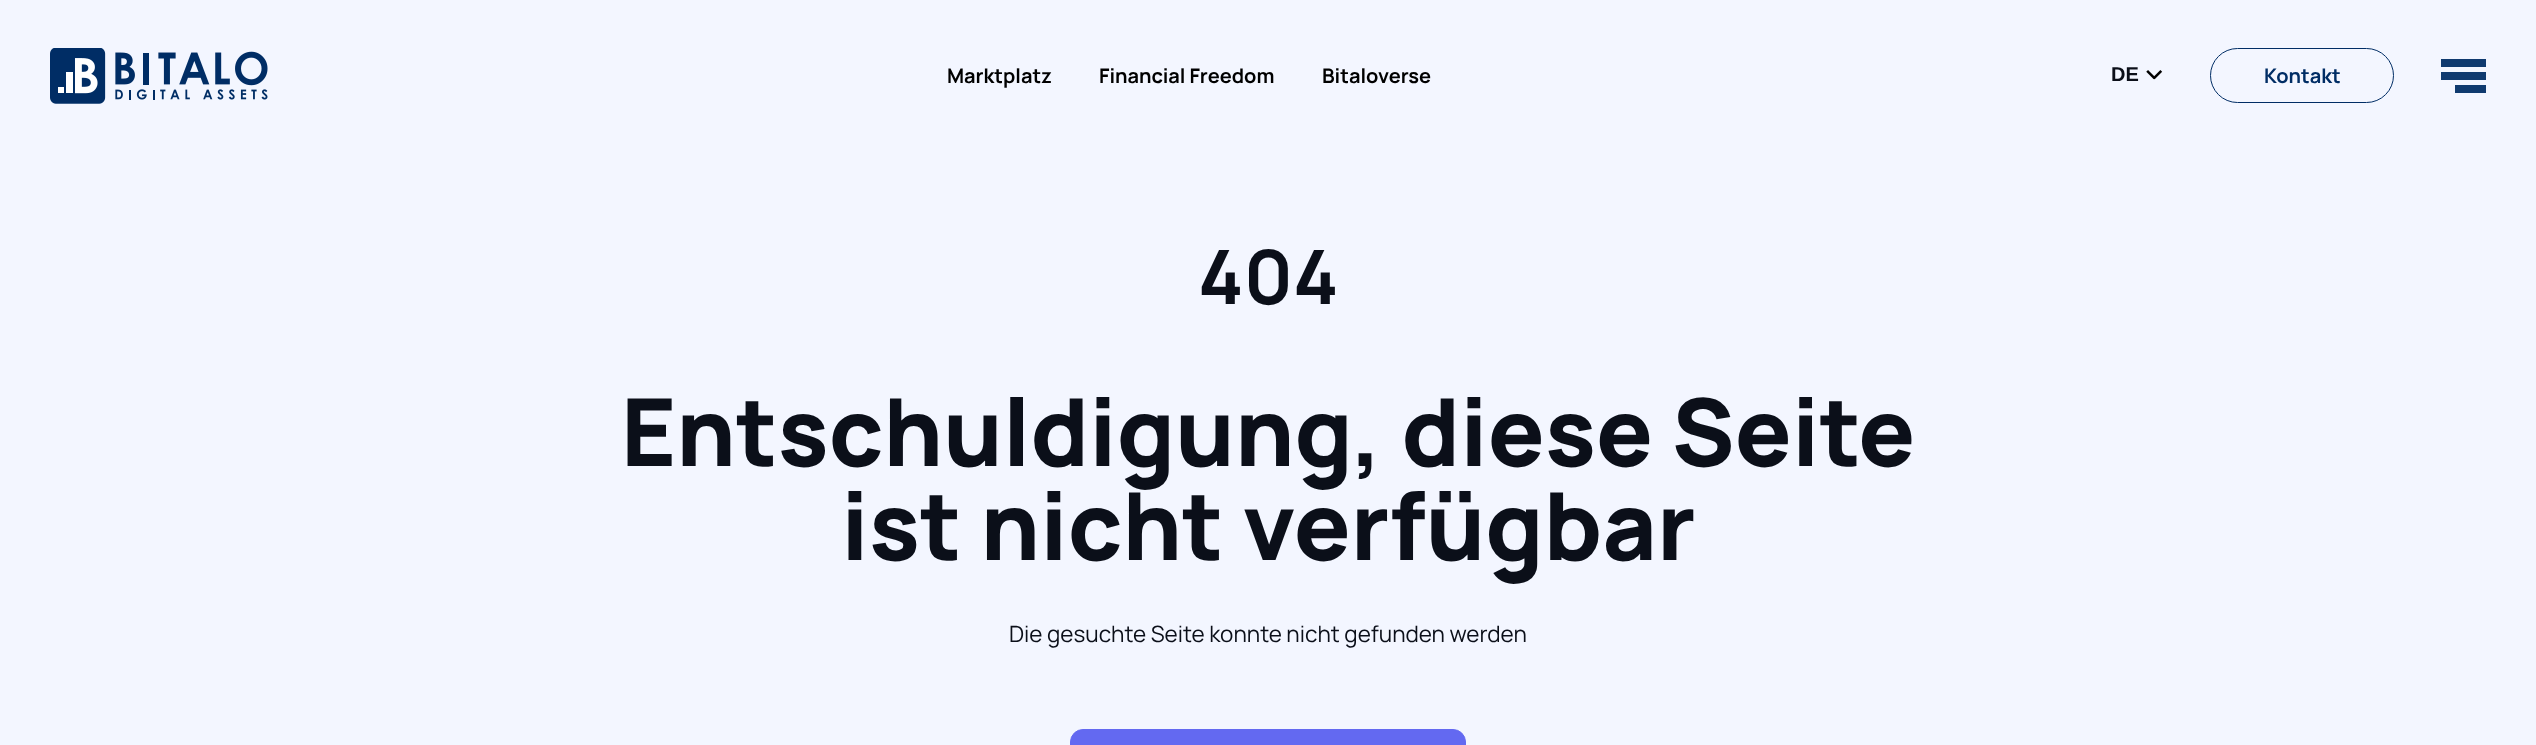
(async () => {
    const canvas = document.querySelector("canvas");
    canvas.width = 2536;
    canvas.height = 745;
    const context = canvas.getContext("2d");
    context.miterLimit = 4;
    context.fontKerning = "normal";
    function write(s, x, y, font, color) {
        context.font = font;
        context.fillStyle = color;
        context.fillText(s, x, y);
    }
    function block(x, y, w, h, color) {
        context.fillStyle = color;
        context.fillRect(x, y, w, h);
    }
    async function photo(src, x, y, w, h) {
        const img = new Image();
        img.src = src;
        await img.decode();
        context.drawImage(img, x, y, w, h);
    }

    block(0, 0, 2536, 745, "rgb(243, 246, 255)");
    await photo("media/1.png", 50, 48, 218, 56);
    write("Marktplatz", 947, 83, "bold 20px Manrope", "rgb(0, 0, 0)");
    write("Financial Freedom", 1099, 83, "bold 20px Manrope", "rgb(0, 0, 0)");
    write("Bitaloverse", 1322, 83, "bold 20px Manrope", "rgb(0, 0, 0)");
    write("DE", 2111, 81, "bold 20px Liberation Sans", "rgb(11, 15, 25)");
    await photo("media/2.png", 2146, 70, 17, 10);
    context.beginPath();
    context.roundRect(2210.5, 48.5, 183, 54, 27);
    context.strokeStyle = "rgb(0, 45, 101)";
    context.stroke();
    write("Kontakt", 2264, 83, "bold 20px Manrope", "rgb(0, 45, 101)");
    block(2441, 59, 45, 8, "rgb(15, 58, 111)");
    block(2441, 72, 45, 8, "rgb(15, 58, 111)");
    block(2455, 85, 31, 8, "rgb(15, 58, 111)");
    write("404", 1198, 304, "bold 75px Manrope", "rgb(11, 15, 25)");
    write("Entschuldigung, diese Seite", 621, 466, "800 93.75px Manrope", "rgb(11, 15, 25)");
    write("ist nicht verfügbar", 841, 560, "800 93.75px Manrope", "rgb(11, 15, 25)");
    write("Die gesuchte Seite konnte nicht gefunden werden", 1009, 642, "22.5px Manrope", "rgb(11, 15, 25)");
    context.fillStyle = "rgb(99, 105, 241)";
    context.beginPath();
    context.roundRect(1070.5, 729.5, 395, 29, 12.5);
    context.fill();
    context.strokeStyle = "rgb(99, 105, 241)";
    context.stroke();
})();
